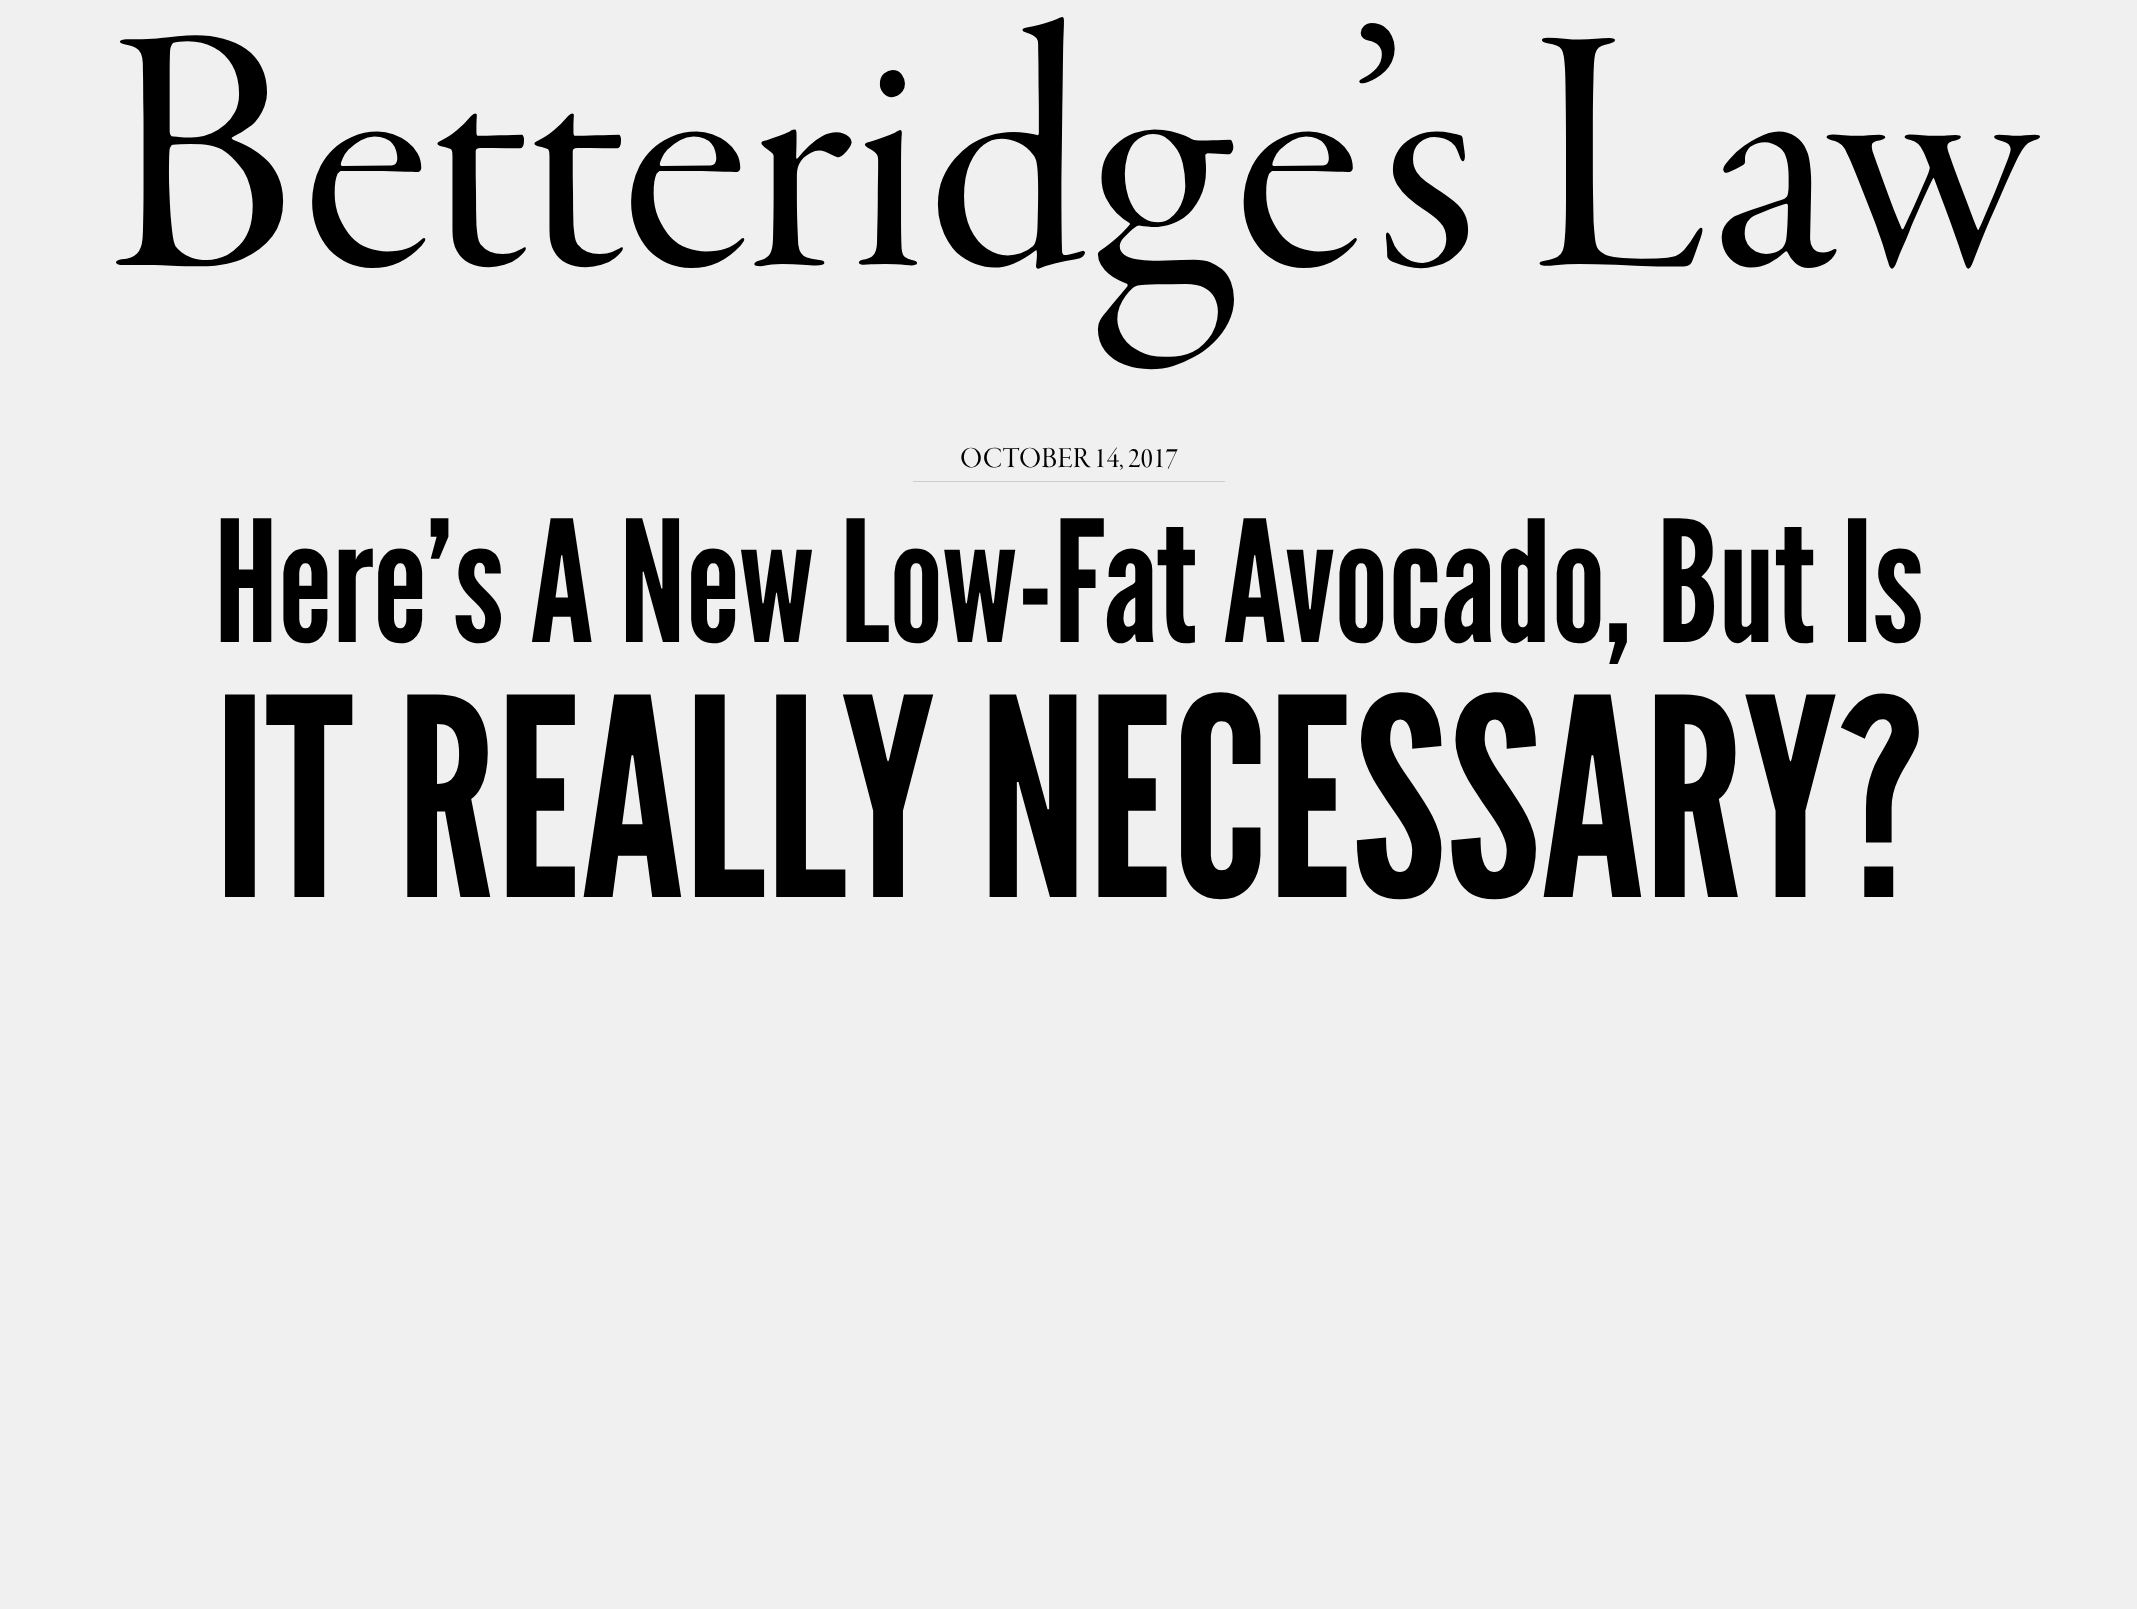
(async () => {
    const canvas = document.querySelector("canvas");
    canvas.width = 2137;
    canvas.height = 1609;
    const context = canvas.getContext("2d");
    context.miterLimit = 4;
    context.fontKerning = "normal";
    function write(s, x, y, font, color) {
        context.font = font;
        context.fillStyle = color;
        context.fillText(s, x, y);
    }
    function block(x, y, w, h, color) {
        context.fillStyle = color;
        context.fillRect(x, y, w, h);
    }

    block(0, 0, 2137, 1609, "rgb(240, 240, 240)");
    context.wordSpacing = "-2px";
    write("Betteridge’s Law", 107, 264, "358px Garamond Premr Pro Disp", "rgb(0, 0, 0)");
    block(913, 481, 312, 1, "rgb(204, 204, 204)");
    context.wordSpacing = "0px";
    write("OCTOBER 14, 2017", 960, 467, "30px Garamond Premr Pro Disp", "rgb(0, 0, 0)");
    write("Here’s A New Low-Fat Avocado, But Is", 214, 642, "168.5px League Gothic", "rgb(0, 0, 0)");
    context.wordSpacing = "1px";
    write("IT REALLY NECESSARY?", 214, 897, "275.5px League Gothic", "rgb(0, 0, 0)");
})();
